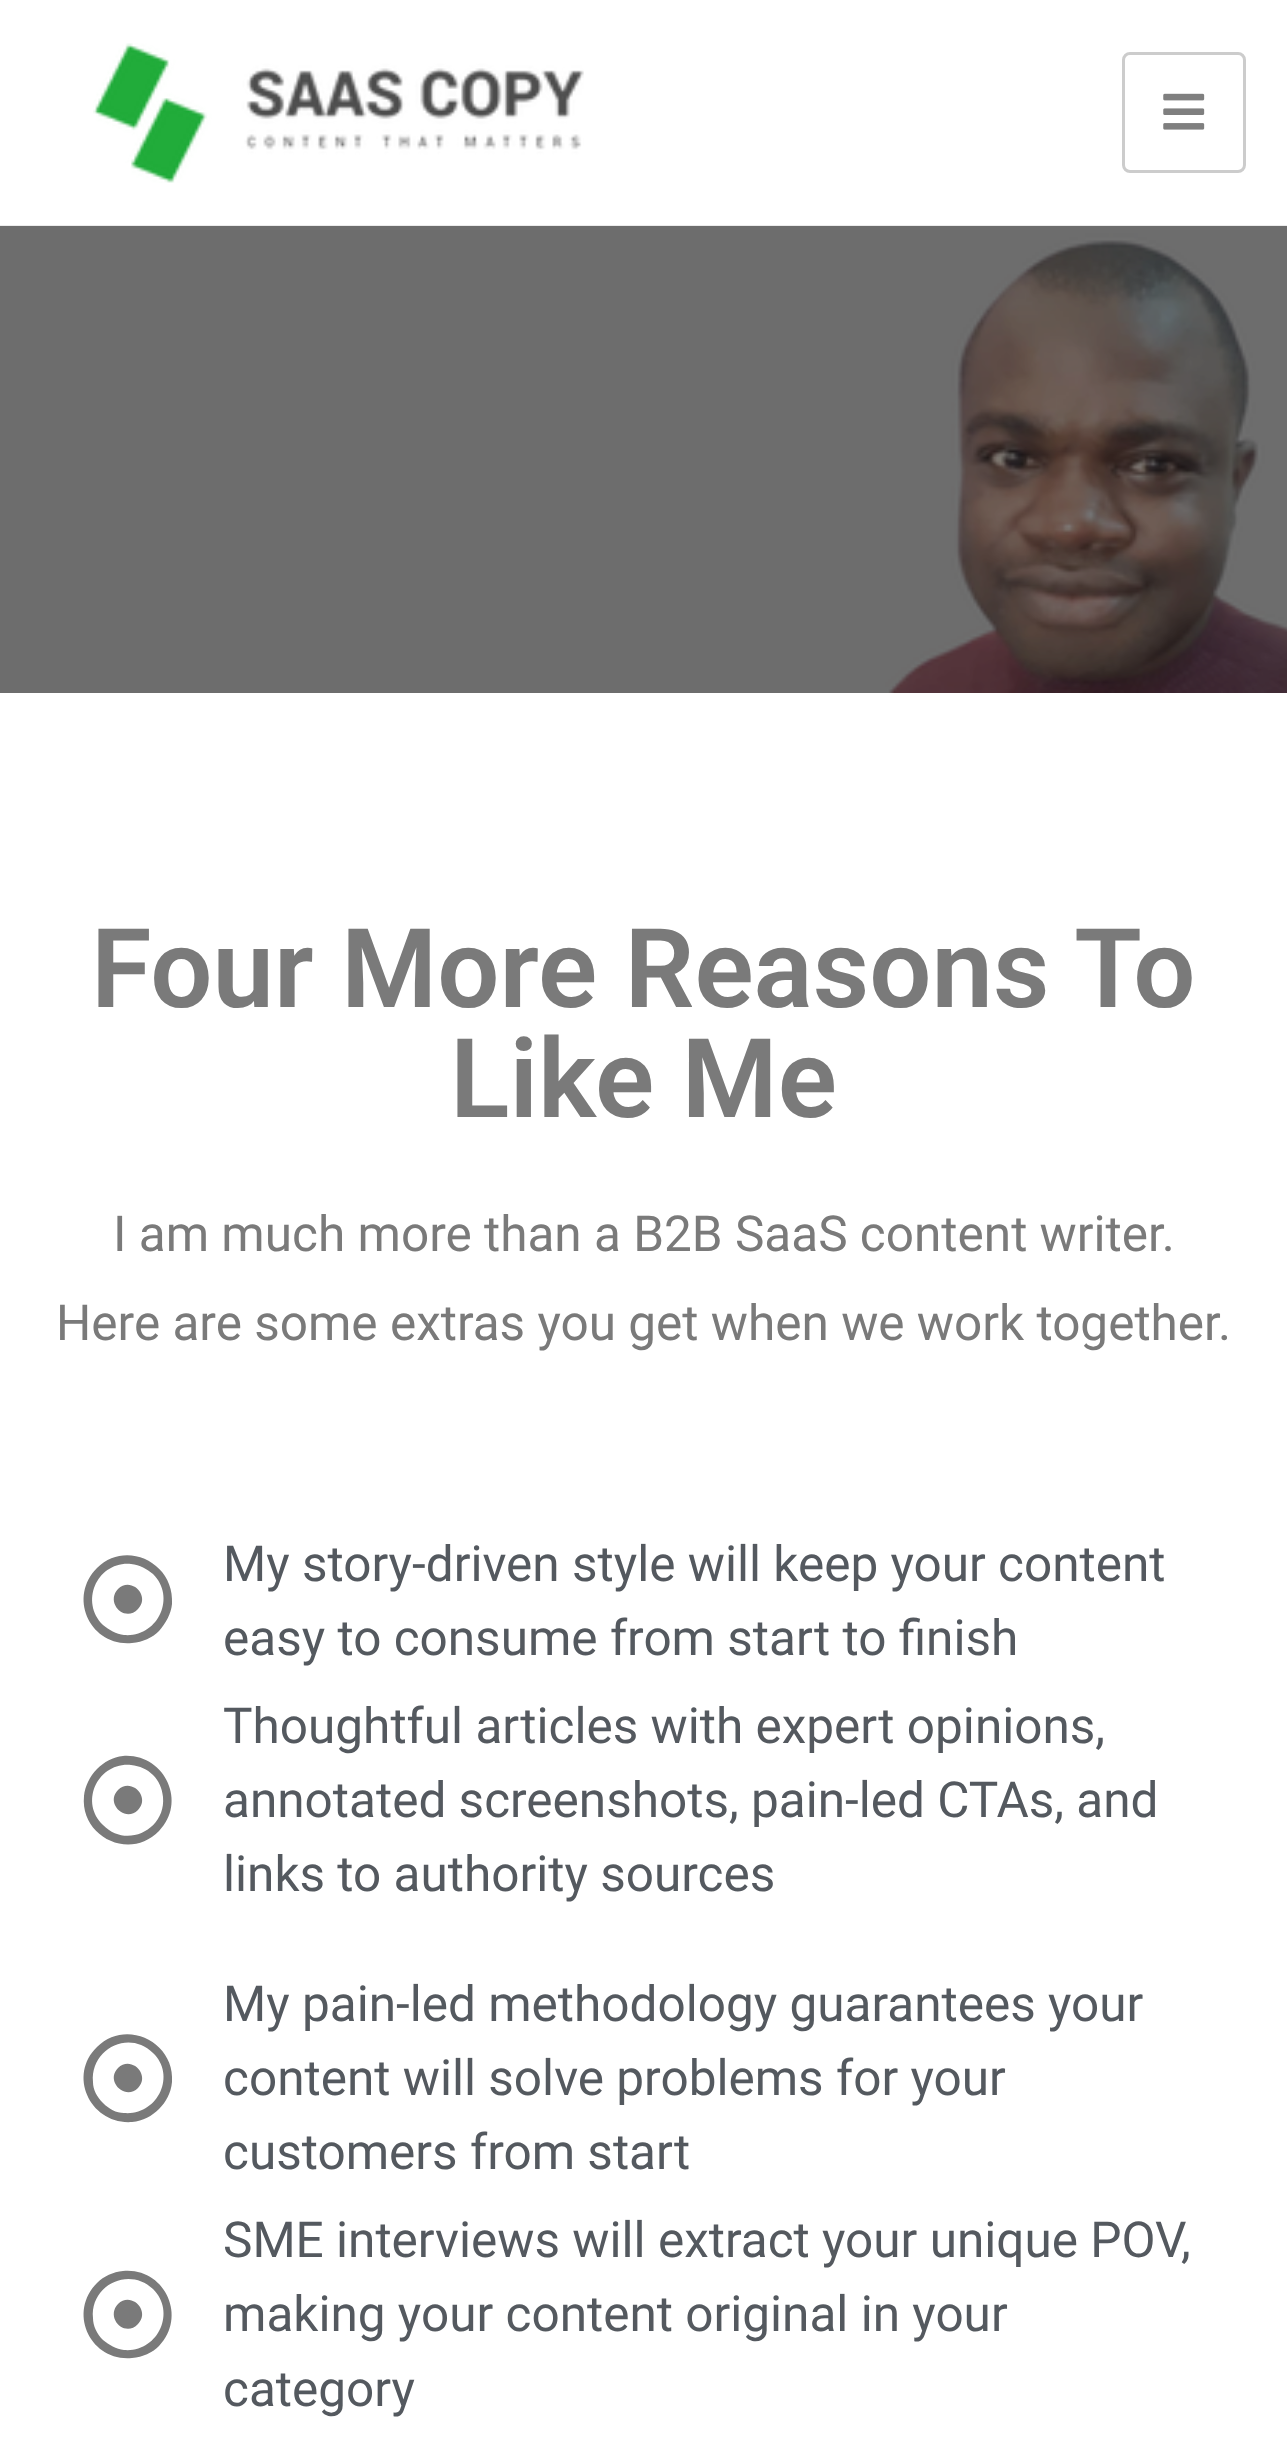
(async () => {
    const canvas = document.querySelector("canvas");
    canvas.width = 1287;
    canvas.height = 2448;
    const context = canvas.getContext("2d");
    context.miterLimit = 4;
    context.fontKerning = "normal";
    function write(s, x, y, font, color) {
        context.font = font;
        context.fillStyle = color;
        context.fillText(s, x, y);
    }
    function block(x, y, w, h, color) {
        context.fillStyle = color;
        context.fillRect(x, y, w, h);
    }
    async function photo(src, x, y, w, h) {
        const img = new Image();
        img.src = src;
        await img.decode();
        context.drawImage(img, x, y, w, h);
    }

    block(0, 0, 1287, 2448, "rgb(255, 255, 255)");
    await photo("media/1.png", 93, 43, 491, 140);
    context.beginPath();
    context.roundRect(1123.5, 53.5, 121, 118, 6.5);
    context.strokeStyle = "rgb(204, 204, 204)";
    context.lineWidth = 3;
    context.stroke();
    await photo("media/2.png", 1163, 93, 42, 37);
    await photo("media/3.png", 0, 225, 1287, 468);
    write("Four More Reasons To", 91, 1007, "600 110px Roboto", "rgb(122, 122, 122)");
    write("Like Me", 450, 1117, "600 110px Roboto", "rgb(122, 122, 122)");
    write("I am much more than a B2B SaaS content writer.", 113, 1251, "49.5px Roboto", "rgb(122, 122, 122)");
    write("Here are some extras you get when we work together.", 56, 1340, "49.5px Roboto", "rgb(122, 122, 122)");
    context.beginPath();
    context.moveTo(153, 1574);
    context.bezierCurveTo(147, 1569, 140, 1565, 131, 1564);
    context.bezierCurveTo(98, 1561, 79, 1601, 103, 1625);
    context.bezierCurveTo(109, 1630, 116, 1634, 124, 1635);
    context.bezierCurveTo(157, 1638, 177, 1598, 153, 1574);
    context.closePath();
    context.moveTo(97, 1568);
    context.bezierCurveTo(126, 1539, 175, 1563, 172, 1604);
    context.bezierCurveTo(171, 1614, 166, 1623, 159, 1631);
    context.bezierCurveTo(152, 1638, 143, 1642, 132, 1643);
    context.bezierCurveTo(91, 1647, 67, 1598, 97, 1568);
    context.closePath();
    context.moveTo(118, 1589);
    context.bezierCurveTo(131, 1576, 151, 1596, 138, 1609);
    context.bezierCurveTo(125, 1623, 105, 1603, 118, 1589);
    context.closePath();
    context.fill();
    write("My story-driven style will keep your content", 223, 1581, "49.5px Roboto", "rgb(84, 89, 95)");
    write("easy to consume from start to finish", 223, 1655, "49.5px Roboto", "rgb(84, 89, 95)");
    context.fillStyle = "rgb(122, 122, 122)";
    context.beginPath();
    context.moveTo(153, 1775);
    context.bezierCurveTo(147, 1769, 140, 1766, 131, 1765);
    context.bezierCurveTo(98, 1762, 79, 1802, 103, 1825);
    context.bezierCurveTo(126, 1849, 166, 1830, 163, 1797);
    context.bezierCurveTo(162, 1788, 159, 1781, 153, 1775);
    context.closePath();
    context.moveTo(97, 1769);
    context.bezierCurveTo(104, 1762, 113, 1757, 123, 1756);
    context.bezierCurveTo(164, 1753, 188, 1802, 159, 1831);
    context.bezierCurveTo(130, 1861, 80, 1837, 84, 1796);
    context.bezierCurveTo(85, 1786, 90, 1776, 97, 1769);
    context.closePath();
    context.moveTo(118, 1790);
    context.bezierCurveTo(131, 1777, 151, 1797, 138, 1810);
    context.bezierCurveTo(125, 1823, 105, 1803, 118, 1790);
    context.closePath();
    context.fill();
    write("Thoughtful articles with expert opinions,", 223, 1743, "49.5px Roboto", "rgb(84, 89, 95)");
    write("annotated screenshots, pain-led CTAs, and", 223, 1817, "49.5px Roboto", "rgb(84, 89, 95)");
    write("links to authority sources", 223, 1891, "49.5px Roboto", "rgb(84, 89, 95)");
    context.fillStyle = "rgb(122, 122, 122)";
    context.beginPath();
    context.moveTo(153, 2053);
    context.bezierCurveTo(129, 2029, 90, 2049, 93, 2082);
    context.bezierCurveTo(93, 2090, 97, 2097, 103, 2103);
    context.bezierCurveTo(109, 2109, 116, 2113, 124, 2113);
    context.bezierCurveTo(157, 2116, 177, 2076, 153, 2053);
    context.closePath();
    context.moveTo(97, 2047);
    context.bezierCurveTo(126, 2018, 175, 2042, 172, 2082);
    context.bezierCurveTo(171, 2093, 166, 2102, 159, 2109);
    context.bezierCurveTo(152, 2116, 143, 2121, 132, 2122);
    context.bezierCurveTo(91, 2125, 67, 2076, 97, 2047);
    context.closePath();
    context.moveTo(118, 2068);
    context.bezierCurveTo(131, 2055, 151, 2075, 138, 2088);
    context.bezierCurveTo(125, 2101, 105, 2081, 118, 2068);
    context.closePath();
    context.fill();
    write("My pain-led methodology guarantees your", 223, 2021, "49.5px Roboto", "rgb(84, 89, 95)");
    write("content will solve problems for your", 223, 2095, "49.5px Roboto", "rgb(84, 89, 95)");
    write("customers from start", 223, 2169, "49.5px Roboto", "rgb(84, 89, 95)");
    context.fillStyle = "rgb(122, 122, 122)";
    context.beginPath();
    context.moveTo(153, 2289);
    context.bezierCurveTo(129, 2266, 90, 2285, 93, 2318);
    context.bezierCurveTo(93, 2326, 97, 2334, 103, 2340);
    context.bezierCurveTo(109, 2345, 116, 2349, 124, 2350);
    context.bezierCurveTo(157, 2353, 177, 2313, 153, 2289);
    context.closePath();
    context.moveTo(97, 2283);
    context.bezierCurveTo(104, 2276, 113, 2272, 123, 2271);
    context.bezierCurveTo(164, 2267, 188, 2316, 159, 2346);
    context.bezierCurveTo(152, 2353, 143, 2357, 132, 2358);
    context.bezierCurveTo(91, 2362, 67, 2313, 97, 2283);
    context.closePath();
    context.moveTo(118, 2304);
    context.bezierCurveTo(131, 2291, 151, 2311, 138, 2324);
    context.bezierCurveTo(125, 2338, 105, 2318, 118, 2304);
    context.closePath();
    context.fill();
    write("SME interviews will extract your unique POV,", 223, 2257, "49.5px Roboto", "rgb(84, 89, 95)");
    write("making your content original in your", 223, 2331, "49.5px Roboto", "rgb(84, 89, 95)");
    write("category", 223, 2406, "49.5px Roboto", "rgb(84, 89, 95)");
})();
